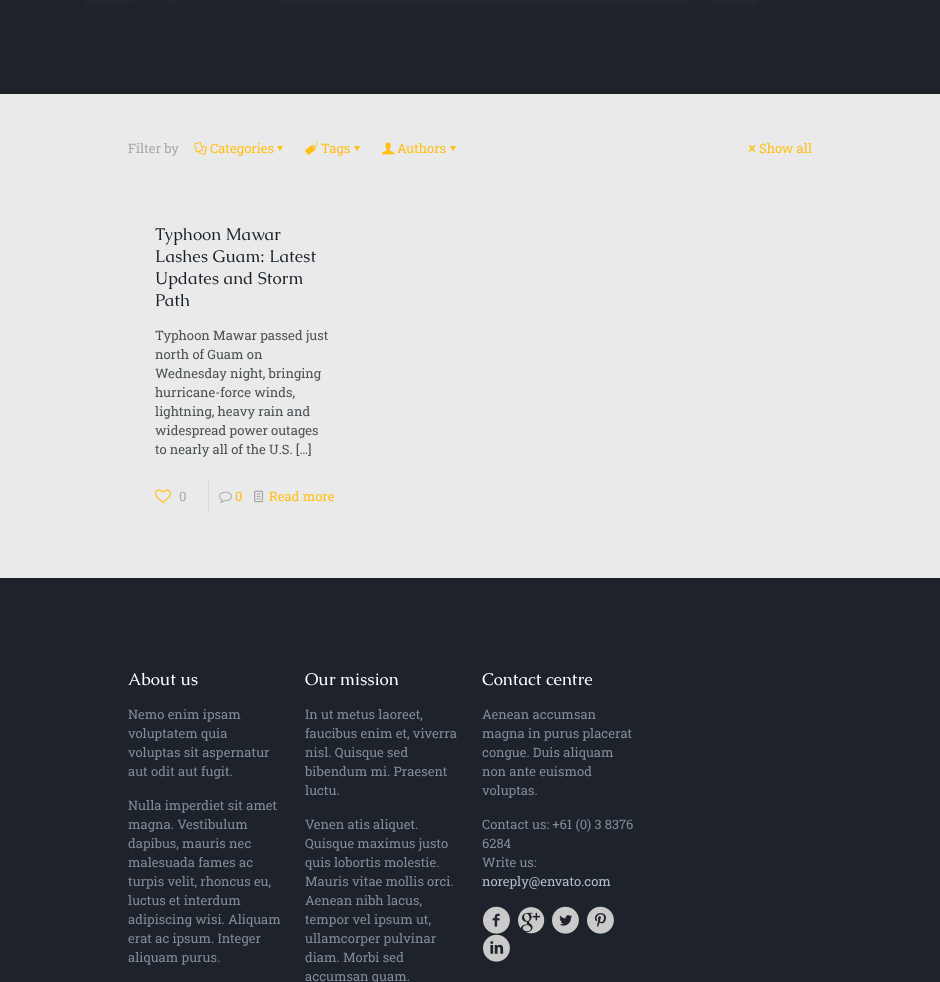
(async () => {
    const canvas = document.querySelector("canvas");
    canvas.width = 940;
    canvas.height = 982;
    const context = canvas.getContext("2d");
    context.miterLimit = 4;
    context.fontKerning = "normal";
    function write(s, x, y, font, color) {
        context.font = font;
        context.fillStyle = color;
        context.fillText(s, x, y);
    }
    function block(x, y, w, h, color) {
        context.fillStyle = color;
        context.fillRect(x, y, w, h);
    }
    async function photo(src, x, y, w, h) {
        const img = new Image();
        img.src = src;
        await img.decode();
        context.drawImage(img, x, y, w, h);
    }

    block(0, 0, 940, 982, "rgb(234, 234, 234)");
    block(0, 0, 940, 94, "rgb(30, 35, 42)");
    await photo("media/1.png", 85, 0, 673, 6);
    write("Filter by", 128, 153, "13px Roboto Slab", "rgb(168, 168, 168)");
    await photo("media/2.png", 194, 142, 13, 13);
    write("Categories", 210, 153, "13px Roboto Slab", "rgb(255, 192, 19)");
    context.beginPath();
    context.moveTo(283, 146);
    context.lineTo(280, 151);
    context.lineTo(277, 146);
    context.closePath();
    context.fill();
    await photo("media/3.png", 305, 142, 13, 13);
    write("Tags", 321, 153, "13px Roboto Slab", "rgb(255, 192, 19)");
    context.beginPath();
    context.moveTo(360, 146);
    context.lineTo(357, 151);
    context.lineTo(354, 146);
    context.closePath();
    context.fill();
    await photo("media/4.png", 382, 142, 13, 13);
    write("Authors", 397, 153, "13px Roboto Slab", "rgb(255, 192, 19)");
    context.beginPath();
    context.moveTo(456, 146);
    context.lineTo(453, 151);
    context.lineTo(450, 146);
    context.closePath();
    context.fill();
    await photo("media/5.png", 749, 145, 7, 7);
    write("Show all", 759, 153, "13px Roboto Slab", "rgb(255, 192, 19)");
    write("Typhoon Mawar", 155, 240, "17px Caudex", "rgb(24, 32, 42)");
    write("Lashes Guam: Latest", 155, 262, "17px Caudex", "rgb(24, 32, 42)");
    write("Updates and Storm", 155, 284, "17px Caudex", "rgb(24, 32, 42)");
    write("Path", 155, 306, "17px Caudex", "rgb(24, 32, 42)");
    write("Typhoon Mawar passed just", 155, 340, "13px Roboto Slab", "rgb(74, 81, 84)");
    write("north of Guam on", 155, 359, "13px Roboto Slab", "rgb(74, 81, 84)");
    write("Wednesday night, bringing", 155, 378, "13px Roboto Slab", "rgb(74, 81, 84)");
    write("hurricane-force winds,", 155, 397, "13px Roboto Slab", "rgb(74, 81, 84)");
    write("lightning, heavy rain and", 155, 416, "13px Roboto Slab", "rgb(74, 81, 84)");
    write("widespread power outages", 155, 435, "13px Roboto Slab", "rgb(74, 81, 84)");
    write("to nearly all of the U.S. […]", 155, 454, "13px Roboto Slab", "rgb(74, 81, 84)");
    await photo("media/6.png", 155, 489, 16, 15);
    write("0", 179, 501, "13px Roboto Slab", "rgb(168, 168, 168)");
    block(208, 481, 1, 30, "rgb(215, 215, 215)");
    await photo("media/7.png", 219, 491, 13, 12);
    write("0", 235, 501, "13px Roboto Slab", "rgb(255, 192, 19)");
    await photo("media/8.png", 254, 490, 10, 13);
    write("Read more", 269, 501, "13px Roboto Slab", "rgb(255, 192, 19)");
    block(0, 578, 940, 404, "rgb(30, 34, 43)");
    write("About us", 128, 685, "17px Caudex", "rgb(255, 255, 255)");
    write("Nemo enim ipsam", 128, 719, "13px Roboto Slab", "rgb(129, 141, 154)");
    write("voluptatem quia", 128, 738, "13px Roboto Slab", "rgb(129, 141, 154)");
    write("voluptas sit aspernatur", 128, 757, "13px Roboto Slab", "rgb(129, 141, 154)");
    write("aut odit aut fugit.", 128, 776, "13px Roboto Slab", "rgb(129, 141, 154)");
    write("Nulla imperdiet sit amet", 128, 810, "13px Roboto Slab", "rgb(129, 141, 154)");
    write("magna. Vestibulum", 128, 829, "13px Roboto Slab", "rgb(129, 141, 154)");
    write("dapibus, mauris nec", 128, 848, "13px Roboto Slab", "rgb(129, 141, 154)");
    write("malesuada fames ac", 128, 867, "13px Roboto Slab", "rgb(129, 141, 154)");
    write("turpis velit, rhoncus eu,", 128, 886, "13px Roboto Slab", "rgb(129, 141, 154)");
    write("luctus et interdum", 128, 905, "13px Roboto Slab", "rgb(129, 141, 154)");
    write("adipiscing wisi. Aliquam", 128, 924, "13px Roboto Slab", "rgb(129, 141, 154)");
    write("erat ac ipsum. Integer", 128, 943, "13px Roboto Slab", "rgb(129, 141, 154)");
    write("aliquam purus.", 128, 962, "13px Roboto Slab", "rgb(129, 141, 154)");
    write("Our mission", 305, 685, "17px Caudex", "rgb(255, 255, 255)");
    write("In ut metus laoreet,", 305, 719, "13px Roboto Slab", "rgb(129, 141, 154)");
    write("faucibus enim et, viverra", 305, 738, "13px Roboto Slab", "rgb(129, 141, 154)");
    write("nisl. Quisque sed", 305, 757, "13px Roboto Slab", "rgb(129, 141, 154)");
    write("bibendum mi. Praesent", 305, 776, "13px Roboto Slab", "rgb(129, 141, 154)");
    write("luctu.", 305, 795, "13px Roboto Slab", "rgb(129, 141, 154)");
    write("Venen atis aliquet.", 305, 829, "13px Roboto Slab", "rgb(129, 141, 154)");
    write("Quisque maximus justo", 305, 848, "13px Roboto Slab", "rgb(129, 141, 154)");
    write("quis lobortis molestie.", 305, 867, "13px Roboto Slab", "rgb(129, 141, 154)");
    write("Mauris vitae mollis orci.", 305, 886, "13px Roboto Slab", "rgb(129, 141, 154)");
    write("Aenean nibh lacus,", 305, 905, "13px Roboto Slab", "rgb(129, 141, 154)");
    write("tempor vel ipsum ut,", 305, 924, "13px Roboto Slab", "rgb(129, 141, 154)");
    write("ullamcorper pulvinar", 305, 943, "13px Roboto Slab", "rgb(129, 141, 154)");
    write("diam. Morbi sed", 305, 962, "13px Roboto Slab", "rgb(129, 141, 154)");
    write("accumsan quam.", 305, 981, "13px Roboto Slab", "rgb(129, 141, 154)");
    write("Contact centre", 482, 685, "17px Caudex", "rgb(255, 255, 255)");
    write("Aenean accumsan", 482, 719, "13px Roboto Slab", "rgb(129, 141, 154)");
    write("magna in purus placerat", 482, 738, "13px Roboto Slab", "rgb(129, 141, 154)");
    write("congue. Duis aliquam", 482, 757, "13px Roboto Slab", "rgb(129, 141, 154)");
    write("non ante euismod", 482, 776, "13px Roboto Slab", "rgb(129, 141, 154)");
    write("voluptas.", 482, 795, "13px Roboto Slab", "rgb(129, 141, 154)");
    write("Contact us: +61 (0) 3 8376", 482, 829, "13px Roboto Slab", "rgb(129, 141, 154)");
    write("6284", 482, 848, "13px Roboto Slab", "rgb(129, 141, 154)");
    write("Write us:", 482, 867, "13px Roboto Slab", "rgb(129, 141, 154)");
    write("noreply@envato.com", 482, 886, "13px Roboto Slab", "rgb(175, 191, 207)");
    await photo("media/9.png", 483, 906, 27, 28);
    await photo("media/10.png", 518, 907, 27, 27);
    await photo("media/11.png", 552, 906, 27, 28);
    await photo("media/12.png", 587, 906, 27, 28);
    await photo("media/13.png", 483, 934, 27, 28);
})();
